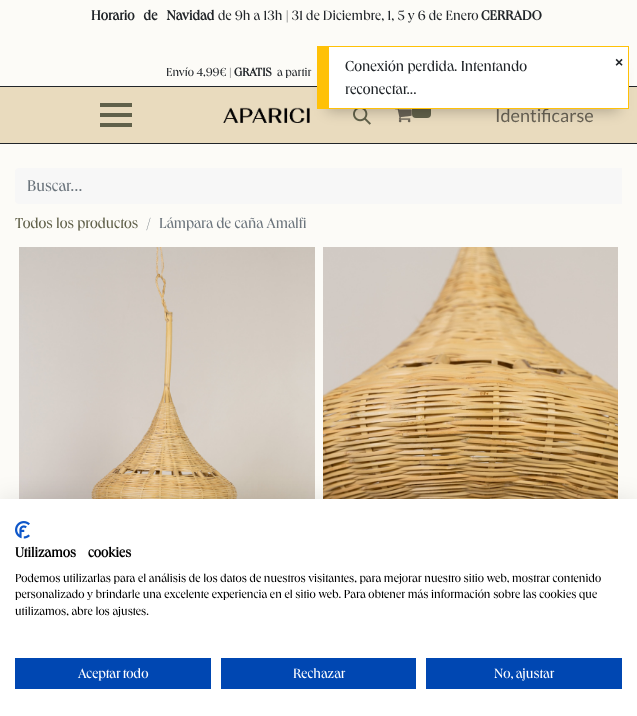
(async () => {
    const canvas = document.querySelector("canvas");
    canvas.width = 637;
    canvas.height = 716;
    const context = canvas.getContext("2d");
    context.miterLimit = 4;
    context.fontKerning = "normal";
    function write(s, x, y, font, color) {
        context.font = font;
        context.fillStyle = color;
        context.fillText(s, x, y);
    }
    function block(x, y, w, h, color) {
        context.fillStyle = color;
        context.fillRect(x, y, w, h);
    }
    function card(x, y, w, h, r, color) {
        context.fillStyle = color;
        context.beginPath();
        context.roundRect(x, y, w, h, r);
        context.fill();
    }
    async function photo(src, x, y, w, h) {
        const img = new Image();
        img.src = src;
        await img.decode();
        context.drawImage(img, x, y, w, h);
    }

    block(0, 0, 637, 716, "rgb(252, 251, 247)");
    context.wordSpacing = "6px";
    write("Horario de Navidad", 91, 20, "bold 14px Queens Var", "rgb(33, 37, 41)");
    context.wordSpacing = "0px";
    write("de 9h a 13h | 31 de Diciembre, 1, 5 y 6 de Enero", 218, 20, "14px Queens Var", "rgb(33, 37, 41)");
    write("CERRADO", 481, 20, "bold 14px Queens Var", "rgb(33, 37, 41)");
    write("Envío 4,99€ |", 166, 76, "12px Queens Var", "rgb(33, 37, 41)");
    write("GRATIS", 234, 76, "bold 12px Queens Var", "rgb(33, 37, 41)");
    write("a partir", 277, 76, "12px Queens Var", "rgb(33, 37, 41)");
    block(0, 87, 637, 56, "rgb(233, 219, 190)");
    block(0, 86, 637, 1, "rgb(33, 37, 41)");
    block(0, 143, 637, 1, "rgb(33, 37, 41)");
    block(100, 113, 32, 4, "rgb(97, 97, 74)");
    block(100, 103, 32, 4, "rgb(97, 97, 74)");
    block(100, 123, 32, 4, "rgb(97, 97, 74)");
    await photo("media/1.png", 223, 107, 87, 16);
    await photo("media/2.png", 353, 109, 18, 16);
    await photo("media/3.png", 395, 109, 17, 14);
    card(412, 98, 19, 20, 4, "rgb(97, 97, 74)");
    write("Identificarse", 495, 122, "18px Lato", "rgb(105, 99, 86)");
    context.fillStyle = "rgb(247, 247, 247)";
    context.beginPath();
    context.roundRect(15, 168, 607, 36, [4, 0, 0, 4]);
    context.fill();
    write("Buscar…", 27, 191, "16px Queens Var", "rgb(108, 117, 125)");
    write("Todos los productos", 15, 228, "15px Queens Var", "rgb(97, 97, 74)");
    write("/", 146, 228, "15px Queens Var", "rgb(108, 117, 125)");
    write("Lámpara de caña Amalfi", 159, 228, "15px Queens Var", "rgb(108, 117, 125)");
    await photo("media/4.png", 19, 247, 296, 252);
    await photo("media/5.png", 323, 247, 295, 252);
    context.fillStyle = "rgba(0, 0, 0, 0.25)";
    context.filter = "blur(7px)";
    context.beginPath();
    context.rect(327, 68, 292, 43);
    context.fill();
    context.filter = "none";
    block(329, 47, 299, 61, "rgb(255, 255, 255)");
    block(329, 46, 300, 1, "rgb(255, 193, 7)");
    block(628, 46, 1, 63, "rgb(255, 193, 7)");
    block(329, 108, 300, 1, "rgb(255, 193, 7)");
    block(317, 46, 12, 63, "rgb(255, 193, 7)");
    write("Conexión perdida. Intentando", 345, 71, "15px Queens Var", "rgb(33, 37, 41)");
    write("reconectar...", 345, 94, "15px Queens Var", "rgb(33, 37, 41)");
    write("×", 615, 67, "bold 14px Liberation Sans", "rgb(33, 37, 41)");
    context.fillStyle = "rgba(0, 0, 0, 0.1)";
    context.filter = "blur(12px)";
    context.beginPath();
    context.rect(0, 499, 637, 217);
    context.fill();
    context.filter = "none";
    block(0, 499, 637, 217, "rgb(255, 255, 255)");
    await photo("media/6.png", 15, 521, 15, 18);
    context.wordSpacing = "9px";
    write("Utilizamos cookies", 15, 557, "bold 14px Queens Var", "rgb(0, 0, 0)");
    context.wordSpacing = "0px";
    write("Podemos utilizarlas para el análisis de los datos de nuestros visitantes, para mejorar nuestro sitio web, mostrar contenido", 15, 582, "12px Queens Var", "rgb(0, 0, 0)");
    write("personalizado y brindarle una excelente experiencia en el sitio web. Para obtener más información sobre las cookies que", 15, 598, "12px Queens Var", "rgb(0, 0, 0)");
    write("utilizamos, abre los ajustes.", 15, 615, "12px Queens Var", "rgb(0, 0, 0)");
    block(15, 658, 196, 31, "rgb(0, 71, 178)");
    context.wordSpacing = "-1px";
    write("Aceptar todo", 78, 678, "14px Queens Var", "rgb(255, 255, 255)");
    block(221, 658, 195, 31, "rgb(0, 71, 178)");
    context.wordSpacing = "0px";
    write("Rechazar", 293, 678, "14px Queens Var", "rgb(255, 255, 255)");
    block(426, 658, 196, 31, "rgb(0, 71, 178)");
    context.wordSpacing = "-1px";
    write("No, ajustar", 494, 678, "14px Queens Var", "rgb(255, 255, 255)");
})();
